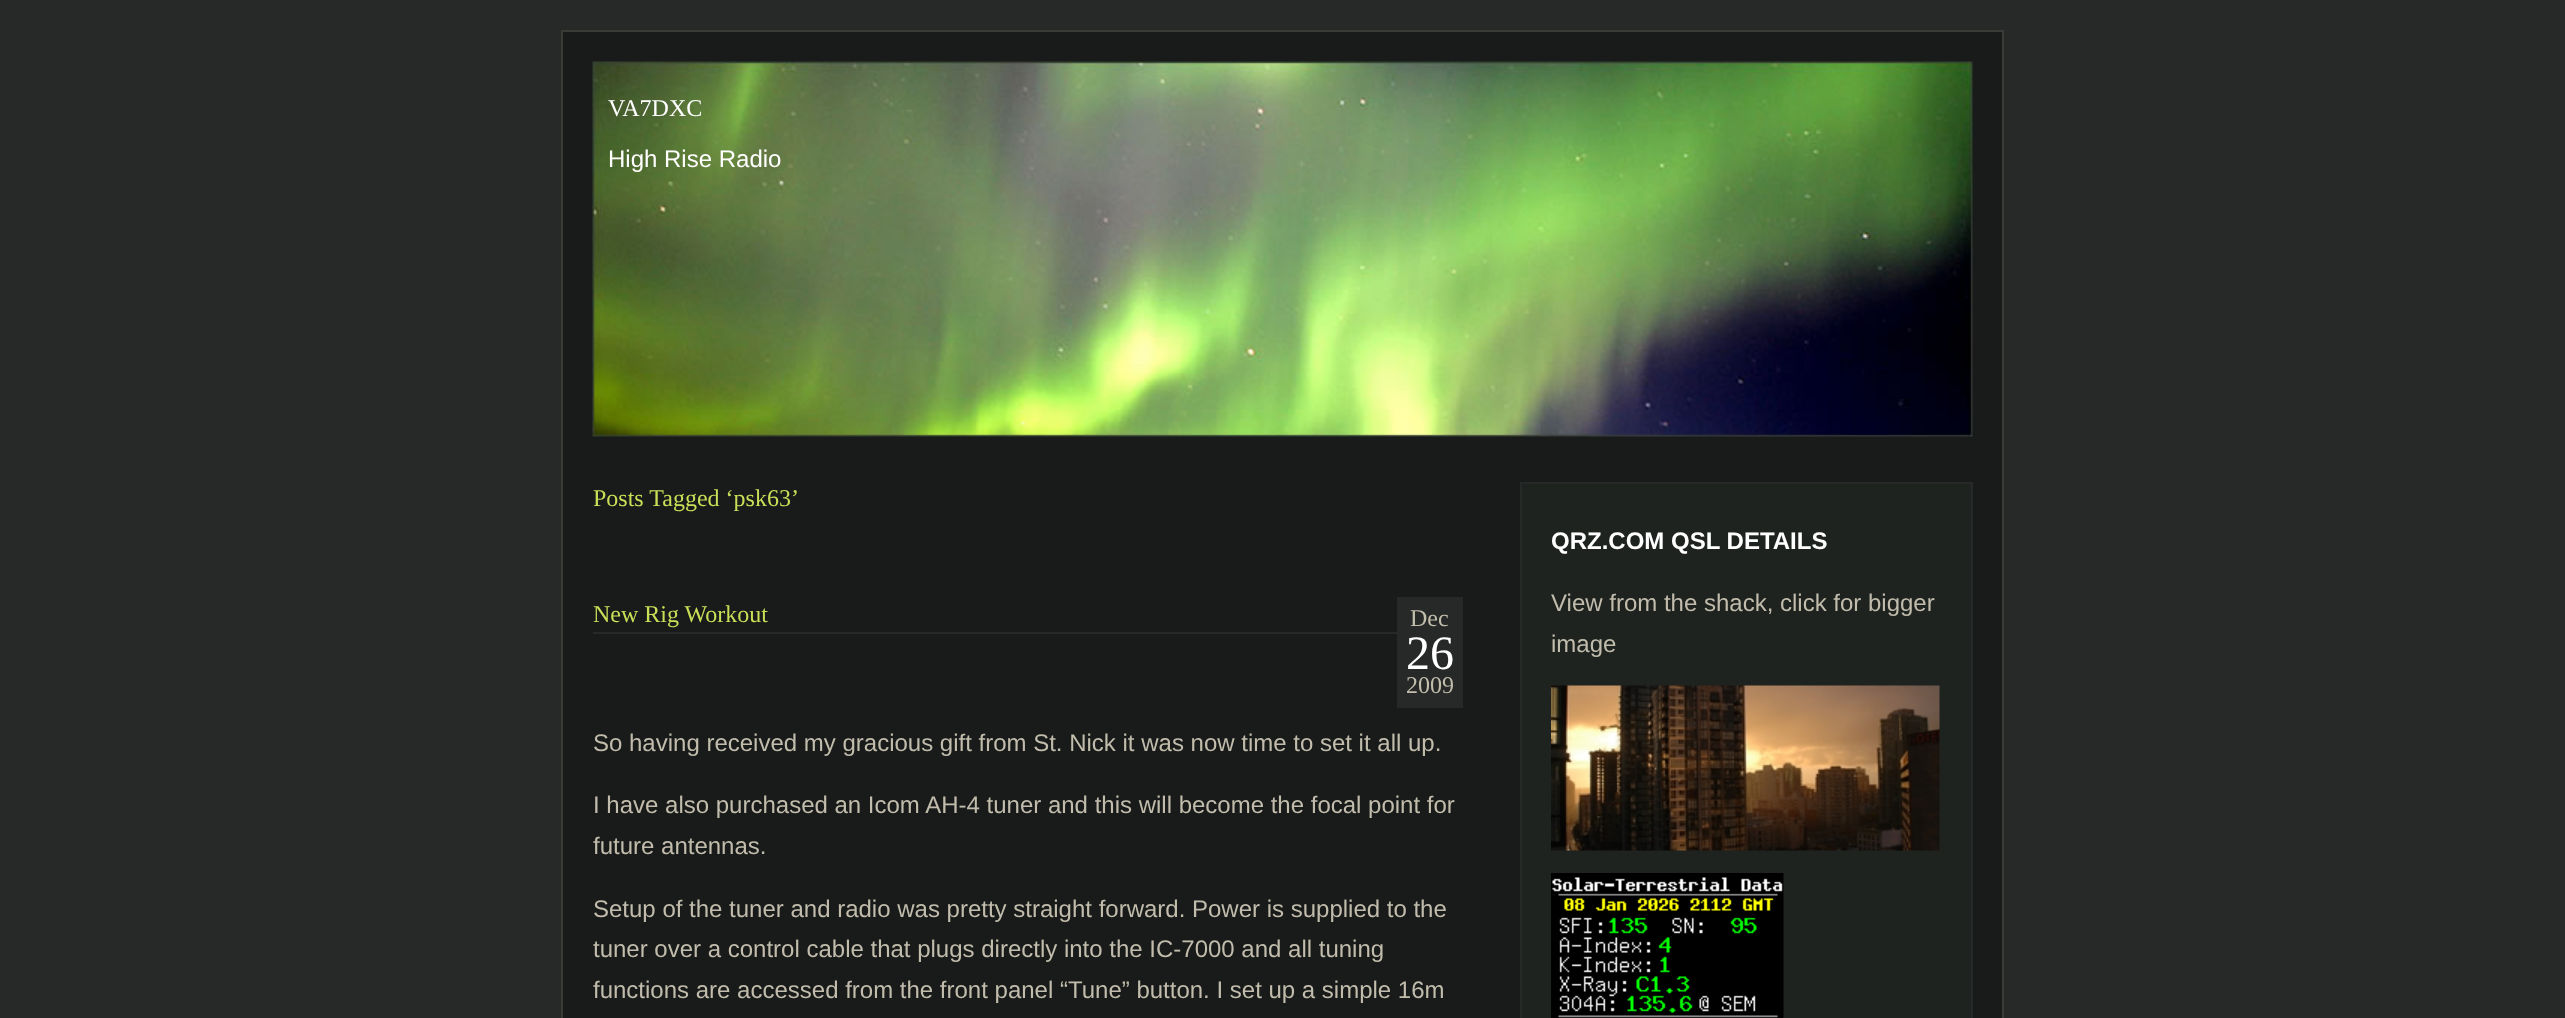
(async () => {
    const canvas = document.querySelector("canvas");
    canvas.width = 2565;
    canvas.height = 1018;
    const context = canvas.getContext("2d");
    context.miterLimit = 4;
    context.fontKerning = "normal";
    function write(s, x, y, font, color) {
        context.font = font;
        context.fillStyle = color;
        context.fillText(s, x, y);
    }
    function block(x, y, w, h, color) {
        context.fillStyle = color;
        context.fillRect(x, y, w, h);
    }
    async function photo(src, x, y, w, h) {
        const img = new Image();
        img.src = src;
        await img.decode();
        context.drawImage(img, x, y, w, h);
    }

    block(0, 0, 2565, 1018, "rgb(38, 41, 39)");
    context.fillStyle = "rgb(24, 27, 25)";
    context.beginPath();
    context.rect(562, 31, 1441, 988);
    context.fill();
    context.strokeStyle = "rgb(56, 60, 55)";
    context.lineWidth = 2;
    context.stroke();
    await photo("media/1.png", 592, 61, 1381, 376);
    write("VA7DXC", 608, 116, "24px Liberation Serif", "rgb(255, 255, 255)");
    write("High Rise Radio", 608, 167, "24px Liberation Sans", "rgb(255, 255, 255)");
    write("Posts Tagged ‘psk63’", 593, 506, "24px Liberation Serif", "rgb(202, 222, 88)");
    block(593, 632, 804, 2, "rgb(38, 41, 39)");
    write("New Rig Workout", 593, 622, "24px Liberation Serif", "rgb(202, 222, 88)");
    block(1397, 597, 66, 111, "rgb(38, 41, 39)");
    write("Dec", 1410, 626, "24px Liberation Serif", "rgb(193, 188, 172)");
    write("26", 1406, 669, "48px Liberation Serif", "rgb(255, 255, 255)");
    write("2009", 1406, 693, "24px Liberation Serif", "rgb(193, 188, 172)");
    write("So having received my gracious gift from St. Nick it was now time to set it all up.", 593, 751, "24px Liberation Sans", "rgb(193, 188, 172)");
    write("I have also purchased an Icom AH-4 tuner and this will become the focal point for", 593, 813, "24px Liberation Sans", "rgb(193, 188, 172)");
    write("future antennas.", 593, 854, "24px Liberation Sans", "rgb(193, 188, 172)");
    write("Setup of the tuner and radio was pretty straight forward. Power is supplied to the", 593, 917, "24px Liberation Sans", "rgb(193, 188, 172)");
    write("tuner over a control cable that plugs directly into the IC-7000 and all tuning", 593, 957, "24px Liberation Sans", "rgb(193, 188, 172)");
    write("functions are accessed from the front panel “Tune” button. I set up a simple 16m", 593, 998, "24px Liberation Sans", "rgb(193, 188, 172)");
    context.fillStyle = "rgb(31, 35, 32)";
    context.beginPath();
    context.rect(1521, 483, 451, 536);
    context.fill();
    context.strokeStyle = "rgb(38, 41, 39)";
    context.stroke();
    write("QRZ.COM QSL DETAILS", 1551, 549, "bold 24px Liberation Sans", "rgb(255, 255, 255)");
    write("View from the shack, click for bigger", 1551, 611, "24px Liberation Sans", "rgb(193, 188, 172)");
    write("image", 1551, 652, "24px Liberation Sans", "rgb(193, 188, 172)");
    await photo("media/2.png", 1551, 685, 389, 166);
    await photo("media/3.png", 1551, 873, 233, 145);
})();
